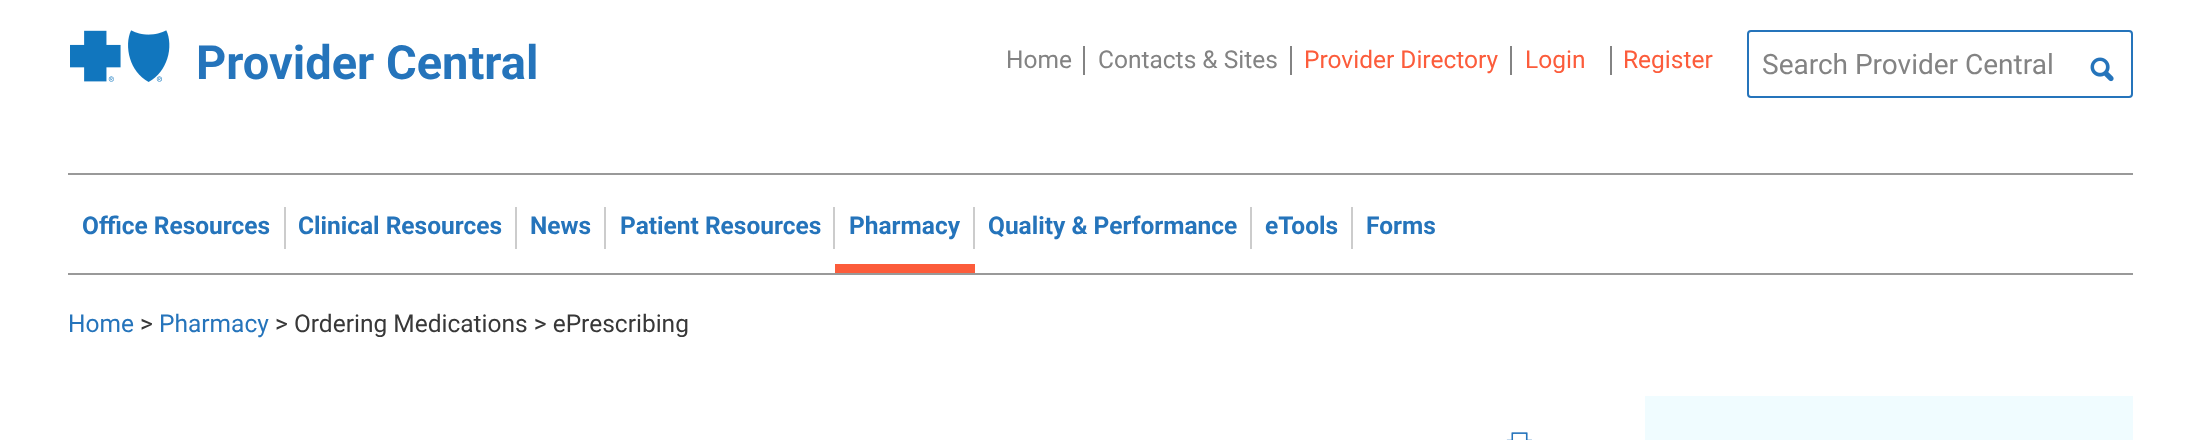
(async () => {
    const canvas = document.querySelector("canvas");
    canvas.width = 2201;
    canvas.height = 440;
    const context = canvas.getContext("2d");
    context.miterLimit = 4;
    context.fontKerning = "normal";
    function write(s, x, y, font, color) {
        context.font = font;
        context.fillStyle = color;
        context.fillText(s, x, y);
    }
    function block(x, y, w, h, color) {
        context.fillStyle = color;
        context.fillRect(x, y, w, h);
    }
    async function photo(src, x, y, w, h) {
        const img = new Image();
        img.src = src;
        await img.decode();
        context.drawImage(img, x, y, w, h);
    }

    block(0, 0, 2201, 440, "rgb(255, 255, 255)");
    await photo("media/1.png", 70, 30, 100, 52);
    write("Provider Central", 196, 79, "bold 47px Roboto", "rgb(37, 116, 187)");
    write("Home", 1006, 68, "24.5px Roboto", "rgb(131, 131, 131)");
    block(1083, 46, 2, 29, "rgb(131, 131, 131)");
    write("Contacts & Sites", 1098, 68, "24.5px Roboto", "rgb(131, 131, 131)");
    block(1290, 46, 2, 29, "rgb(131, 131, 131)");
    write("Provider Directory", 1304, 68, "24.5px Roboto", "rgb(252, 92, 59)");
    block(1510, 46, 2, 29, "rgb(131, 131, 131)");
    write("Login", 1525, 68, "24.5px Roboto", "rgb(252, 92, 59)");
    block(1610, 46, 2, 29, "rgb(131, 131, 131)");
    write("Register", 1623, 68, "24.5px Roboto", "rgb(252, 92, 59)");
    context.beginPath();
    context.roundRect(1748, 31, 384, 66, 3);
    context.strokeStyle = "rgb(37, 116, 187)";
    context.lineWidth = 2;
    context.stroke();
    write("Search Provider Central", 1762, 74, "28px Roboto", "rgb(131, 131, 131)");
    await photo("media/2.png", 2090, 57, 24, 25);
    block(68, 173, 2065, 2, "rgb(153, 153, 153)");
    block(68, 273, 2065, 2, "rgb(153, 153, 153)");
    write("Office Resources", 82, 234, "bold 24.5px Roboto", "rgb(37, 116, 187)");
    block(284, 207, 2, 42, "rgb(204, 204, 204)");
    write("Clinical Resources", 298, 234, "bold 24.5px Roboto", "rgb(37, 116, 187)");
    block(515, 207, 2, 42, "rgb(204, 204, 204)");
    write("News", 530, 234, "bold 24.5px Roboto", "rgb(37, 116, 187)");
    block(604, 207, 2, 42, "rgb(204, 204, 204)");
    write("Patient Resources", 620, 234, "bold 24.5px Roboto", "rgb(37, 116, 187)");
    block(833, 207, 2, 42, "rgb(204, 204, 204)");
    block(835, 264, 140, 9, "rgb(252, 92, 59)");
    write("Pharmacy", 849, 234, "bold 24.5px Roboto", "rgb(37, 116, 187)");
    block(973, 207, 2, 42, "rgb(204, 204, 204)");
    write("Quality & Performance", 988, 234, "bold 24.5px Roboto", "rgb(37, 116, 187)");
    block(1250, 207, 2, 42, "rgb(204, 204, 204)");
    write("eTools", 1265, 234, "bold 24.5px Roboto", "rgb(37, 116, 187)");
    block(1351, 207, 2, 42, "rgb(204, 204, 204)");
    write("Forms", 1366, 234, "bold 24.5px Roboto", "rgb(37, 116, 187)");
    write("Home", 68, 332, "24.5px Roboto", "rgb(37, 116, 187)");
    write(">", 140, 332, "24.5px Roboto", "rgb(56, 56, 56)");
    write("Pharmacy", 159, 332, "24.5px Roboto", "rgb(37, 116, 187)");
    write("> Ordering Medications > ePrescribing", 275, 332, "24.5px Roboto", "rgb(56, 56, 56)");
    await photo("media/3.png", 1506, 432, 26, 8);
    block(1645, 396, 488, 44, "rgb(240, 252, 255)");
})();
